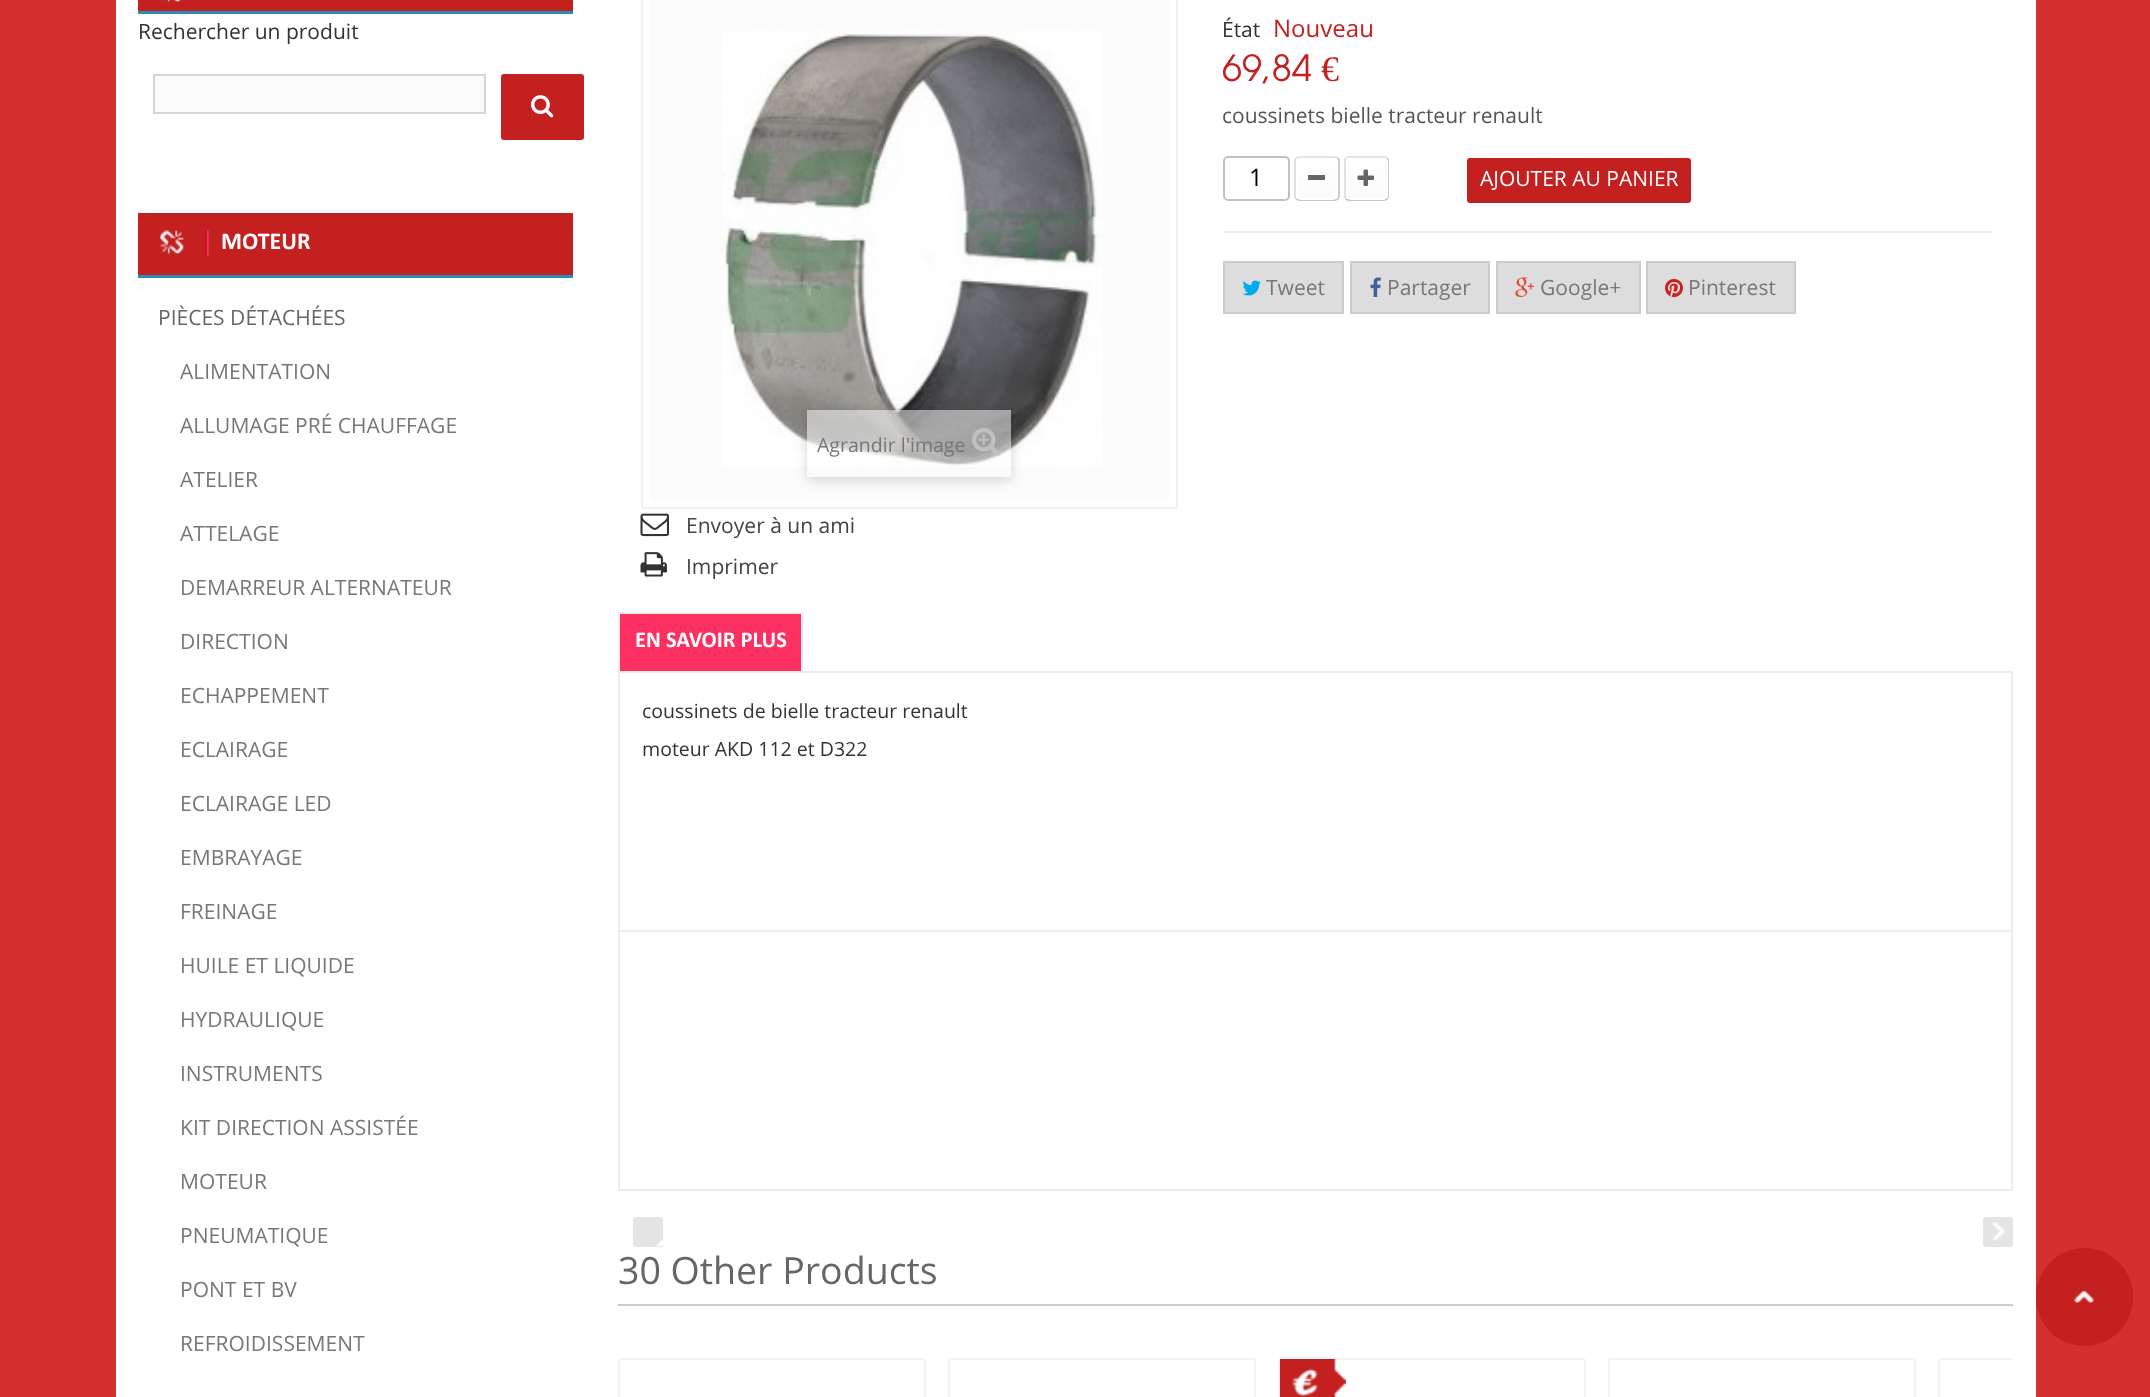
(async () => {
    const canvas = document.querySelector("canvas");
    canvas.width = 2150;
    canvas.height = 1397;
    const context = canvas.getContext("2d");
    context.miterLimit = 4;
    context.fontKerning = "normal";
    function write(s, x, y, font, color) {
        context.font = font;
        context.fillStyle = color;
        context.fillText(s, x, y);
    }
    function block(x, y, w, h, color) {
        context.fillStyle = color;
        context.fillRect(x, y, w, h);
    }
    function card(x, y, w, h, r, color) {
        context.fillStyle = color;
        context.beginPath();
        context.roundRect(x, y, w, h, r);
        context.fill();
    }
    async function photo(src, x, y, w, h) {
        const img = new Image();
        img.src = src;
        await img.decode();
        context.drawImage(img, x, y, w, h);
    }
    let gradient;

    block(0, 0, 2150, 1397, "rgb(212, 48, 47)");
    block(116, 0, 1920, 1397, "rgb(255, 255, 255)");
    block(138, 0, 435, 11, "rgb(196, 32, 31)");
    await photo("media/1.png", 162, 0, 19, 3);
    block(138, 11, 435, 3, "rgb(39, 143, 182)");
    write("Rechercher un produit", 138, 39, "21px Open Sans", "rgb(51, 51, 51)");
    context.fillStyle = "rgb(251, 251, 251)";
    context.beginPath();
    context.rect(154, 75, 331, 38);
    context.fill();
    context.strokeStyle = "rgb(214, 212, 212)";
    context.lineWidth = 2;
    context.stroke();
    card(501, 74, 83, 66, 3, "rgb(196, 32, 31)");
    await photo("media/2.png", 531, 95, 23, 23);
    block(138, 213, 435, 62, "rgb(196, 32, 31)");
    await photo("media/3.png", 160, 230, 25, 25);
    block(138, 275, 435, 3, "rgb(39, 143, 182)");
    await photo("media/4.png", 205, 230, 4, 26);
    write("MOTEUR", 221, 249, "bold 24px Calibri", "rgb(255, 255, 255)");
    write("PIÈCES DÉTACHÉES", 158, 325, "21px Open Sans", "rgb(102, 102, 102)");
    write("ALIMENTATION", 180, 379, "21px Open Sans", "rgb(119, 119, 119)");
    write("ALLUMAGE PRÉ CHAUFFAGE", 180, 433, "21px Open Sans", "rgb(119, 119, 119)");
    write("ATELIER", 180, 487, "21px Open Sans", "rgb(119, 119, 119)");
    write("ATTELAGE", 180, 541, "21px Open Sans", "rgb(119, 119, 119)");
    write("DEMARREUR ALTERNATEUR", 180, 595, "21px Open Sans", "rgb(119, 119, 119)");
    write("DIRECTION", 180, 649, "21px Open Sans", "rgb(119, 119, 119)");
    write("ECHAPPEMENT", 180, 703, "21px Open Sans", "rgb(119, 119, 119)");
    write("ECLAIRAGE", 180, 757, "21px Open Sans", "rgb(119, 119, 119)");
    write("ECLAIRAGE LED", 180, 811, "21px Open Sans", "rgb(119, 119, 119)");
    write("EMBRAYAGE", 180, 865, "21px Open Sans", "rgb(119, 119, 119)");
    write("FREINAGE", 180, 919, "21px Open Sans", "rgb(119, 119, 119)");
    write("HUILE ET LIQUIDE", 180, 973, "21px Open Sans", "rgb(119, 119, 119)");
    write("HYDRAULIQUE", 180, 1027, "21px Open Sans", "rgb(119, 119, 119)");
    write("INSTRUMENTS", 180, 1081, "21px Open Sans", "rgb(119, 119, 119)");
    write("KIT DIRECTION ASSISTÉE", 180, 1135, "21px Open Sans", "rgb(119, 119, 119)");
    write("MOTEUR", 180, 1189, "21px Open Sans", "rgb(119, 119, 119)");
    write("PNEUMATIQUE", 180, 1243, "21px Open Sans", "rgb(119, 119, 119)");
    write("PONT ET BV", 180, 1297, "21px Open Sans", "rgb(119, 119, 119)");
    write("REFROIDISSEMENT", 180, 1351, "21px Open Sans", "rgb(119, 119, 119)");
    write("État", 1222, 37, "21px Open Sans", "rgb(51, 51, 51)");
    write("Nouveau", 1273, 37, "24px Open Sans", "rgb(196, 32, 31)");
    write("69,84", 1222, 81, "36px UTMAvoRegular", "rgb(196, 32, 31)");
    write("€", 1321, 81, "36px Liberation Serif", "rgb(196, 32, 31)");
    write("coussinets bielle tracteur renault", 1222, 123, "21px Open Sans", "rgb(85, 85, 85)");
    context.beginPath();
    context.roundRect(1224, 157, 65, 43, 4);
    context.strokeStyle = "rgb(189, 194, 201)";
    context.stroke();
    write("1", 1249, 186, "24px Open Sans", "rgb(0, 0, 0)");
    context.beginPath();
    context.moveTo(1296.5, 158);
    context.bezierCurveTo(1297, 157, 1298, 157, 1299, 157);
    context.lineTo(1335, 157);
    context.bezierCurveTo(1336, 157, 1337, 157, 1337.5, 158);
    context.strokeStyle = "rgb(222, 220, 220)";
    context.lineWidth = 1.5;
    context.stroke();
    context.beginPath();
    context.moveTo(1337.5, 158);
    context.bezierCurveTo(1338.5, 158.5, 1339, 159.5, 1339, 160.5);
    context.lineTo(1339, 196.5);
    context.bezierCurveTo(1339, 197.5, 1338.5, 198.5, 1337.5, 199);
    context.strokeStyle = "rgb(193, 191, 191)";
    context.stroke();
    context.beginPath();
    context.moveTo(1337.5, 199);
    context.bezierCurveTo(1337, 200, 1336, 200, 1335, 200);
    context.lineTo(1299, 200);
    context.bezierCurveTo(1298, 200, 1297, 200, 1296.5, 199);
    context.strokeStyle = "rgb(181, 180, 180)";
    context.stroke();
    context.beginPath();
    context.moveTo(1296.5, 199);
    context.bezierCurveTo(1295.5, 198.5, 1295, 197.5, 1295, 196.5);
    context.lineTo(1295, 160.5);
    context.bezierCurveTo(1295, 159.5, 1295.5, 158.5, 1296.5, 158);
    context.strokeStyle = "rgb(218, 216, 216)";
    context.stroke();
    context.save();
    context.beginPath();
    context.roundRect(1296, 158, 42, 42, 5);
    context.clip();
    gradient = context.createLinearGradient(1317, 159, 1317, 198);
    gradient.addColorStop(0, "rgb(255, 255, 255)");
    gradient.addColorStop(1, "rgb(251, 251, 251)");
    context.fillStyle = gradient;
    context.fillRect(1296, 159, 42, 39);
    context.restore();
    context.beginPath();
    context.roundRect(1297, 159, 40, 40, 4);
    context.strokeStyle = "rgb(255, 255, 255)";
    context.lineWidth = 2;
    context.stroke();
    block(1308, 175, 17, 5, "rgb(102, 102, 102)");
    context.beginPath();
    context.moveTo(1346, 158);
    context.bezierCurveTo(1346.5, 157, 1347.5, 157, 1348.5, 157);
    context.lineTo(1384.5, 157);
    context.bezierCurveTo(1385.5, 157, 1386.5, 157, 1387, 158);
    context.strokeStyle = "rgb(222, 220, 220)";
    context.lineWidth = 1.5;
    context.stroke();
    context.beginPath();
    context.moveTo(1387, 158);
    context.bezierCurveTo(1388, 158.5, 1388, 159.5, 1388, 160.5);
    context.lineTo(1388, 196.5);
    context.bezierCurveTo(1388, 197.5, 1388, 198.5, 1387, 199);
    context.strokeStyle = "rgb(193, 191, 191)";
    context.stroke();
    context.beginPath();
    context.moveTo(1387, 199);
    context.bezierCurveTo(1386.5, 200, 1385.5, 200, 1384.5, 200);
    context.lineTo(1348.5, 200);
    context.bezierCurveTo(1347.5, 200, 1346.5, 200, 1346, 199);
    context.strokeStyle = "rgb(181, 180, 180)";
    context.stroke();
    context.beginPath();
    context.moveTo(1346, 199);
    context.bezierCurveTo(1345, 198.5, 1345, 197.5, 1345, 196.5);
    context.lineTo(1345, 160.5);
    context.bezierCurveTo(1345, 159.5, 1345, 158.5, 1346, 158);
    context.strokeStyle = "rgb(218, 216, 216)";
    context.stroke();
    context.save();
    context.beginPath();
    context.roundRect(1346, 158, 42, 42, 5);
    context.clip();
    gradient = context.createLinearGradient(1367, 159, 1367, 198);
    gradient.addColorStop(0, "rgb(255, 255, 255)");
    gradient.addColorStop(1, "rgb(251, 251, 251)");
    context.fillStyle = gradient;
    context.fillRect(1346, 159, 42, 39);
    context.restore();
    context.beginPath();
    context.roundRect(1347, 159, 40, 40, 4);
    context.strokeStyle = "rgb(255, 255, 255)";
    context.lineWidth = 2;
    context.stroke();
    await photo("media/5.png", 1357, 169, 17, 17);
    card(1467, 158, 224, 45, 3, "rgb(196, 32, 31)");
    write("AJOUTER AU PANIER", 1480, 186, "21px Open Sans", "rgb(255, 255, 255)");
    block(1223, 231, 768, 2, "rgb(237, 237, 237)");
    context.fillStyle = "rgb(221, 221, 221)";
    context.beginPath();
    context.rect(1224, 262, 119, 51);
    context.fill();
    context.strokeStyle = "rgb(204, 204, 204)";
    context.stroke();
    await photo("media/6.png", 1242, 280, 19, 16);
    write("Tweet", 1266, 295, "21px Open Sans", "rgb(119, 119, 119)");
    context.fillStyle = "rgb(221, 221, 221)";
    context.beginPath();
    context.rect(1351, 262, 138, 51);
    context.fill();
    context.stroke();
    await photo("media/7.png", 1370, 277, 11, 20);
    write("Partager", 1387, 295, "21px Open Sans", "rgb(119, 119, 119)");
    context.fillStyle = "rgb(221, 221, 221)";
    context.beginPath();
    context.rect(1497, 262, 143, 51);
    context.fill();
    context.stroke();
    await photo("media/8.png", 1515, 277, 19, 20);
    write("Google+", 1540, 295, "21px Open Sans", "rgb(119, 119, 119)");
    context.fillStyle = "rgb(221, 221, 221)";
    context.beginPath();
    context.rect(1647, 262, 148, 51);
    context.fill();
    context.stroke();
    await photo("media/9.png", 1665, 279, 18, 18);
    write("Pinterest", 1688, 295, "21px Open Sans", "rgb(119, 119, 119)");
    context.beginPath();
    context.roundRect(642, -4, 535, 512, 2);
    context.strokeStyle = "rgb(241, 241, 241)";
    context.stroke();
    block(650, 0, 519, 500, "rgb(251, 251, 251)");
    await photo("media/10.png", 722, 31, 381, 436);
    context.save();
    context.beginPath();
    context.moveTo(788, 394);
    context.lineTo(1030, 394);
    context.lineTo(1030, 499);
    context.lineTo(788, 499);
    context.closePath();
    context.moveTo(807, 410);
    context.lineTo(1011, 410);
    context.lineTo(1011, 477);
    context.lineTo(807, 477);
    context.closePath();
    context.clip("evenodd");
    context.fillStyle = "rgba(0, 0, 0, 0.16)";
    context.filter = "blur(6px)";
    context.beginPath();
    context.rect(807, 413, 204, 67);
    context.fill();
    context.filter = "none";
    context.restore();
    block(807, 410, 204, 57, "rgba(255, 255, 255, 0.5)");
    write("Agrandir l'image", 817, 452, "19.5px Open Sans", "rgb(119, 119, 119)");
    await photo("media/11.png", 972, 428, 28, 28);
    await photo("media/12.png", 640, 513, 29, 24);
    write("Envoyer à un ami", 686, 533, "21px Open Sans", "rgb(68, 68, 68)");
    await photo("media/13.png", 640, 552, 27, 25);
    write("Imprimer", 686, 574, "21px Open Sans", "rgb(68, 68, 68)");
    block(620, 614, 181, 57, "rgb(253, 49, 97)");
    block(618, 612, 185, 2, "rgb(238, 238, 238)");
    block(801, 612, 2, 60, "rgb(238, 238, 238)");
    block(618, 612, 2, 60, "rgb(238, 238, 238)");
    write("EN SAVOIR PLUS", 635, 647, "bold 22.5px Calibri", "rgb(255, 255, 255)");
    context.strokeStyle = "rgb(237, 237, 237)";
    context.strokeRect(619, 672, 1393, 259);
    write("coussinets de bielle tracteur renault", 642, 718, "19.5px Open Sans", "rgb(51, 51, 51)");
    write("moteur AKD 112 et D322", 642, 756, "19.5px Open Sans", "rgb(51, 51, 51)");
    context.strokeRect(619, 931, 1393, 259);
    card(633, 1217, 30, 30, 3, "rgb(229, 229, 229)");
    await photo("media/14.png", 655, 1238, 8, 8);
    card(1983, 1217, 30, 30, 3, "rgb(229, 229, 229)");
    await photo("media/15.png", 1992, 1222, 13, 19);
    context.beginPath();
    context.roundRect(619, 1359, 306, 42, 2);
    context.strokeStyle = "rgb(244, 244, 244)";
    context.stroke();
    context.beginPath();
    context.roundRect(949, 1359, 306, 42, 2);
    context.stroke();
    context.beginPath();
    context.roundRect(1279, 1359, 306, 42, 2);
    context.stroke();
    await photo("media/16.png", 1280, 1359, 66, 38);
    context.beginPath();
    context.roundRect(1609, 1359, 306, 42, 2);
    context.stroke();
    context.save();
    context.beginPath();
    context.rect(618, 1358, 1395, 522);
    context.clip();
    context.beginPath();
    context.roundRect(1939, 1359, 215, 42, 2);
    context.stroke();
    context.restore();
    block(618, 1304, 1395, 2, "rgb(204, 204, 204)");
    write("30 Other Products", 618, 1284, "37.5px Open Sans", "rgb(102, 102, 102)");
    card(2036, 1248, 97, 98, 48.5, "rgb(196, 32, 31)");
    await photo("media/17.png", 2073, 1290, 22, 14);
})();
